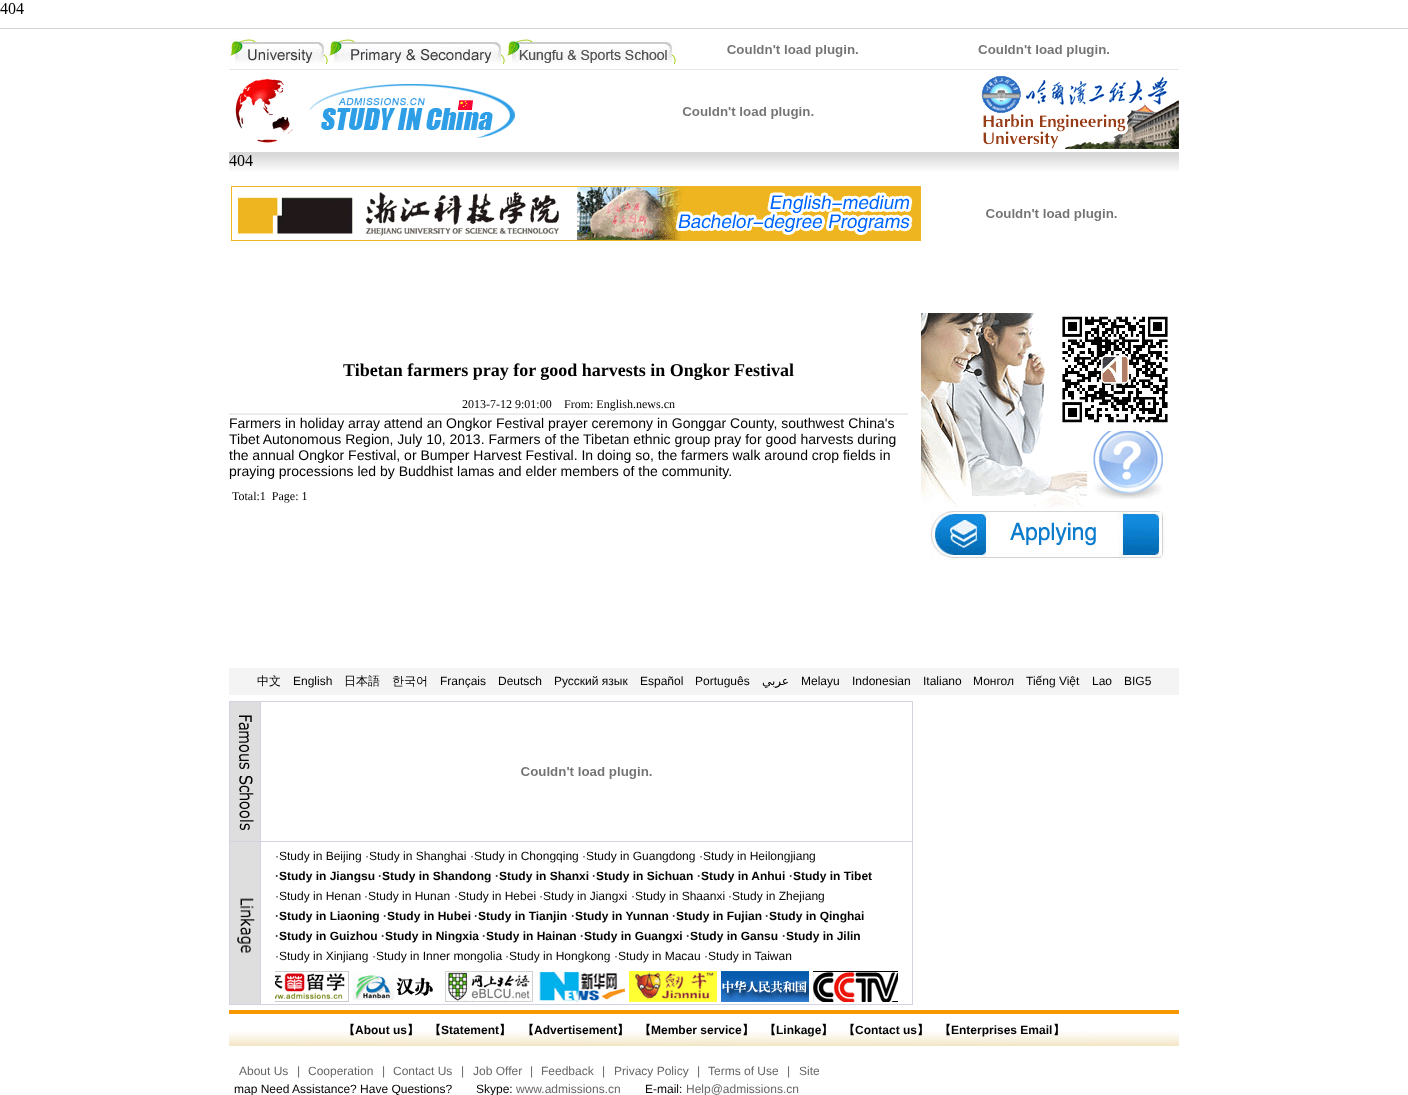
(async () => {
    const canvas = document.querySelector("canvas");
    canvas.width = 1408;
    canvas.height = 1095;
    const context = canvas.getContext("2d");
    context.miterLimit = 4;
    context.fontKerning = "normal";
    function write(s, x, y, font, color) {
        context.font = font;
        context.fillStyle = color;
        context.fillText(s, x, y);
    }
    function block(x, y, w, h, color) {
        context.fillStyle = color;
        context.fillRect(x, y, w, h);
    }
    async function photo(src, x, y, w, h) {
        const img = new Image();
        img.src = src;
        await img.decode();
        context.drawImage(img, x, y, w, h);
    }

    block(0, 0, 1408, 1095, "rgb(255, 255, 255)");
    block(0, 28, 1408, 1, "rgb(212, 212, 212)");
    await photo("media/1.png", 0, 3, 24, 11);
    await photo("media/2.png", 229, 39, 448, 27);
    await photo("media/3.png", 727, 45, 131, 12);
    await photo("media/4.png", 978, 45, 131, 12);
    block(229, 69, 950, 1, "rgb(231, 231, 231)");
    await photo("media/5.png", 235, 79, 58, 64);
    await photo("media/6.png", 309, 84, 206, 54);
    await photo("media/7.png", 682, 107, 132, 12);
    await photo("media/8.png", 981, 75, 198, 74);
    await photo("media/9.png", 229, 152, 950, 19);
    await photo("media/10.png", 229, 155, 24, 11);
    await photo("media/11.png", 231, 186, 690, 55);
    await photo("media/12.png", 986, 209, 131, 12);
    write("Tibetan farmers pray for good harvests in Ongkor Festival", 343, 376, "bold 18px Liberation Serif", "rgb(0, 0, 0)");
    write("2013-7-12 9:01:00", 462, 408, "12px Liberation Serif", "rgb(0, 0, 0)");
    write("From: English.news.cn", 564, 408, "12px Liberation Serif", "rgb(0, 0, 0)");
    block(229, 413, 679, 2, "rgb(236, 236, 236)");
    write("Farmers in holiday array attend an Ongkor Festival prayer ceremony in Gonggar County, southwest China's", 229, 428, "14px Liberation Sans", "rgb(0, 0, 0)");
    write("Tibet Autonomous Region, July 10, 2013. Farmers of the Tibetan ethnic group pray for good harvests during", 229, 444, "14px Liberation Sans", "rgb(0, 0, 0)");
    write("the annual Ongkor Festival, or Bumper Harvest Festival. In doing so, the farmers walk around crop fields in", 229, 460, "14px Liberation Sans", "rgb(0, 0, 0)");
    write("praying processions led by Buddhist lamas and elder members of the community.", 229, 476, "14px Liberation Sans", "rgb(0, 0, 0)");
    write("Total:1  Page: 1", 232, 500, "12px Liberation Serif", "rgb(0, 0, 0)");
    await photo("media/13.png", 921, 313, 247, 195);
    await photo("media/14.png", 930, 511, 236, 49);
    block(229, 668, 950, 27, "rgb(244, 244, 244)");
    write("中文", 257, 685, "500 12px WenQuanYi Zen Hei", "rgb(0, 0, 0)");
    write("English", 293, 685, "12px Liberation Sans", "rgb(0, 0, 0)");
    write("日本語", 344, 685, "500 12px WenQuanYi Zen Hei", "rgb(0, 0, 0)");
    write("한국어", 392, 685, "500 12px WenQuanYi Zen Hei", "rgb(0, 0, 0)");
    write("Français", 440, 685, "12px Liberation Sans", "rgb(0, 0, 0)");
    write("Deutsch", 498, 685, "12px Liberation Sans", "rgb(0, 0, 0)");
    write("Русский язык", 554, 685, "12px Liberation Sans", "rgb(0, 0, 0)");
    write("Español", 640, 685, "12px Liberation Sans", "rgb(0, 0, 0)");
    write("Português", 695, 685, "12px Liberation Sans", "rgb(0, 0, 0)");
    context.direction = "rtl";
    write("عربي", 789, 685, "12px DejaVu Sans", "rgb(0, 0, 0)");
    context.direction = "ltr";
    write("Melayu", 801, 685, "12px Liberation Sans", "rgb(0, 0, 0)");
    write("Indonesian", 852, 685, "12px Liberation Sans", "rgb(0, 0, 0)");
    write("Italiano", 923, 685, "12px Liberation Sans", "rgb(0, 0, 0)");
    write("Монгол", 973, 685, "12px Liberation Sans", "rgb(0, 0, 0)");
    write("Tiếng Việt", 1026, 685, "12px Liberation Sans", "rgb(0, 0, 0)");
    write("Lao", 1092, 685, "12px Liberation Sans", "rgb(0, 0, 0)");
    write("BIG5", 1124, 685, "12px Liberation Sans", "rgb(0, 0, 0)");
    block(229, 701, 684, 304, "rgb(211, 210, 225)");
    block(230, 702, 30, 139, "rgb(222, 222, 222)");
    await photo("media/15.png", 238, 715, 16, 115);
    block(261, 702, 651, 139, "rgb(255, 255, 255)");
    await photo("media/12.png", 521, 767, 131, 12);
    block(230, 842, 30, 162, "rgb(222, 222, 222)");
    await photo("media/16.png", 237, 898, 18, 55);
    block(261, 842, 651, 162, "rgb(255, 255, 255)");
    write("·", 275, 860, "12px Liberation Sans", "rgb(51, 51, 51)");
    write("Study in Beijing", 279, 860, "12px Liberation Sans", "rgb(0, 0, 0)");
    write("·", 365, 860, "12px Liberation Sans", "rgb(51, 51, 51)");
    write("Study in Shanghai", 369, 860, "12px Liberation Sans", "rgb(0, 0, 0)");
    write("·", 470, 860, "12px Liberation Sans", "rgb(51, 51, 51)");
    write("Study in Chongqing", 474, 860, "12px Liberation Sans", "rgb(0, 0, 0)");
    write("·", 582, 860, "12px Liberation Sans", "rgb(51, 51, 51)");
    write("Study in Guangdong", 586, 860, "12px Liberation Sans", "rgb(0, 0, 0)");
    write("·", 699, 860, "12px Liberation Sans", "rgb(51, 51, 51)");
    write("Study in Heilongjiang", 703, 860, "12px Liberation Sans", "rgb(0, 0, 0)");
    write("·", 275, 880, "bold 12px Liberation Sans", "rgb(51, 51, 51)");
    write("Study in Jiangsu", 279, 880, "bold 12px Liberation Sans", "rgb(0, 0, 0)");
    write("·", 378, 880, "bold 12px Liberation Sans", "rgb(51, 51, 51)");
    write("Study in Shandong", 382, 880, "bold 12px Liberation Sans", "rgb(0, 0, 0)");
    write("·", 495, 880, "bold 12px Liberation Sans", "rgb(51, 51, 51)");
    write("Study in Shanxi", 499, 880, "bold 12px Liberation Sans", "rgb(0, 0, 0)");
    write("·", 592, 880, "bold 12px Liberation Sans", "rgb(51, 51, 51)");
    write("Study in Sichuan", 596, 880, "bold 12px Liberation Sans", "rgb(0, 0, 0)");
    write("·", 697, 880, "bold 12px Liberation Sans", "rgb(51, 51, 51)");
    write("Study in Anhui", 701, 880, "bold 12px Liberation Sans", "rgb(0, 0, 0)");
    write("·", 789, 880, "bold 12px Liberation Sans", "rgb(51, 51, 51)");
    write("Study in Tibet", 793, 880, "bold 12px Liberation Sans", "rgb(0, 0, 0)");
    write("·", 275, 900, "12px Liberation Sans", "rgb(51, 51, 51)");
    write("Study in Henan", 279, 900, "12px Liberation Sans", "rgb(0, 0, 0)");
    write("·", 364, 900, "12px Liberation Sans", "rgb(51, 51, 51)");
    write("Study in Hunan", 368, 900, "12px Liberation Sans", "rgb(0, 0, 0)");
    write("·", 454, 900, "12px Liberation Sans", "rgb(51, 51, 51)");
    write("Study in Hebei", 458, 900, "12px Liberation Sans", "rgb(0, 0, 0)");
    write("·", 539, 900, "12px Liberation Sans", "rgb(51, 51, 51)");
    write("Study in Jiangxi", 543, 900, "12px Liberation Sans", "rgb(0, 0, 0)");
    write("·", 631, 900, "12px Liberation Sans", "rgb(51, 51, 51)");
    write("Study in Shaanxi", 635, 900, "12px Liberation Sans", "rgb(0, 0, 0)");
    write("·", 728, 900, "12px Liberation Sans", "rgb(51, 51, 51)");
    write("Study in Zhejiang", 732, 900, "12px Liberation Sans", "rgb(0, 0, 0)");
    write("·", 275, 920, "bold 12px Liberation Sans", "rgb(51, 51, 51)");
    write("Study in Liaoning", 279, 920, "bold 12px Liberation Sans", "rgb(0, 0, 0)");
    write("·", 383, 920, "bold 12px Liberation Sans", "rgb(51, 51, 51)");
    write("Study in Hubei", 387, 920, "bold 12px Liberation Sans", "rgb(0, 0, 0)");
    write("·", 474, 920, "bold 12px Liberation Sans", "rgb(51, 51, 51)");
    write("Study in Tianjin", 478, 920, "bold 12px Liberation Sans", "rgb(0, 0, 0)");
    write("·", 571, 920, "bold 12px Liberation Sans", "rgb(51, 51, 51)");
    write("Study in Yunnan", 575, 920, "bold 12px Liberation Sans", "rgb(0, 0, 0)");
    write("·", 672, 920, "bold 12px Liberation Sans", "rgb(51, 51, 51)");
    write("Study in Fujian", 676, 920, "bold 12px Liberation Sans", "rgb(0, 0, 0)");
    write("·", 765, 920, "bold 12px Liberation Sans", "rgb(51, 51, 51)");
    write("Study in Qinghai", 769, 920, "bold 12px Liberation Sans", "rgb(0, 0, 0)");
    write("·", 275, 940, "bold 12px Liberation Sans", "rgb(51, 51, 51)");
    write("Study in Guizhou", 279, 940, "bold 12px Liberation Sans", "rgb(0, 0, 0)");
    write("·", 381, 940, "bold 12px Liberation Sans", "rgb(51, 51, 51)");
    write("Study in Ningxia", 385, 940, "bold 12px Liberation Sans", "rgb(0, 0, 0)");
    write("·", 482, 940, "bold 12px Liberation Sans", "rgb(51, 51, 51)");
    write("Study in Hainan", 486, 940, "bold 12px Liberation Sans", "rgb(0, 0, 0)");
    write("·", 580, 940, "bold 12px Liberation Sans", "rgb(51, 51, 51)");
    write("Study in Guangxi", 584, 940, "bold 12px Liberation Sans", "rgb(0, 0, 0)");
    write("·", 686, 940, "bold 12px Liberation Sans", "rgb(51, 51, 51)");
    write("Study in Gansu", 690, 940, "bold 12px Liberation Sans", "rgb(0, 0, 0)");
    write("·", 782, 940, "bold 12px Liberation Sans", "rgb(51, 51, 51)");
    write("Study in Jilin", 786, 940, "bold 12px Liberation Sans", "rgb(0, 0, 0)");
    write("·", 275, 960, "12px Liberation Sans", "rgb(51, 51, 51)");
    write("Study in Xinjiang", 279, 960, "12px Liberation Sans", "rgb(0, 0, 0)");
    write("·", 372, 960, "12px Liberation Sans", "rgb(51, 51, 51)");
    write("Study in Inner mongolia", 376, 960, "12px Liberation Sans", "rgb(0, 0, 0)");
    write("·", 505, 960, "12px Liberation Sans", "rgb(51, 51, 51)");
    write("Study in Hongkong", 509, 960, "12px Liberation Sans", "rgb(0, 0, 0)");
    write("·", 614, 960, "12px Liberation Sans", "rgb(51, 51, 51)");
    write("Study in Macau", 618, 960, "12px Liberation Sans", "rgb(0, 0, 0)");
    write("·", 704, 960, "12px Liberation Sans", "rgb(51, 51, 51)");
    write("Study in Taiwan", 708, 960, "12px Liberation Sans", "rgb(0, 0, 0)");
    await photo("media/17.png", 275, 971, 623, 31);
    block(229, 1010, 950, 4, "rgb(247, 152, 0)");
    await photo("media/18.png", 229, 1014, 80, 32);
    await photo("media/19.png", 309, 1014, 790, 32);
    write("【", 343, 1034, "bold 12px WenQuanYi Zen Hei", "rgb(0, 0, 0)");
    write("About us", 355, 1034, "bold 12px Liberation Sans", "rgb(0, 0, 0)");
    write("】", 407, 1034, "bold 12px WenQuanYi Zen Hei", "rgb(0, 0, 0)");
    write("【", 429, 1034, "bold 12px WenQuanYi Zen Hei", "rgb(0, 0, 0)");
    write("Statement", 441, 1034, "bold 12px Liberation Sans", "rgb(0, 0, 0)");
    write("】", 499, 1034, "bold 12px WenQuanYi Zen Hei", "rgb(0, 0, 0)");
    write("【", 522, 1034, "bold 12px WenQuanYi Zen Hei", "rgb(0, 0, 0)");
    write("Advertisement", 534, 1034, "bold 12px Liberation Sans", "rgb(0, 0, 0)");
    write("】", 617, 1034, "bold 12px WenQuanYi Zen Hei", "rgb(0, 0, 0)");
    write("【", 639, 1034, "bold 12px WenQuanYi Zen Hei", "rgb(0, 0, 0)");
    write("Member service", 651, 1034, "bold 12px Liberation Sans", "rgb(0, 0, 0)");
    write("】", 742, 1034, "bold 12px WenQuanYi Zen Hei", "rgb(0, 0, 0)");
    write("【", 764, 1034, "bold 12px WenQuanYi Zen Hei", "rgb(0, 0, 0)");
    write("Linkage", 776, 1034, "bold 12px Liberation Sans", "rgb(0, 0, 0)");
    write("】", 821, 1034, "bold 12px WenQuanYi Zen Hei", "rgb(0, 0, 0)");
    write("【", 843, 1034, "bold 12px WenQuanYi Zen Hei", "rgb(0, 0, 0)");
    write("Contact us", 855, 1034, "bold 12px Liberation Sans", "rgb(0, 0, 0)");
    write("】", 917, 1034, "bold 12px WenQuanYi Zen Hei", "rgb(0, 0, 0)");
    write("【", 939, 1034, "bold 12px WenQuanYi Zen Hei", "rgb(0, 0, 0)");
    write("Enterprises Email", 951, 1034, "bold 12px Liberation Sans", "rgb(0, 0, 0)");
    write("】", 1053, 1034, "bold 12px WenQuanYi Zen Hei", "rgb(0, 0, 0)");
    await photo("media/18.png", 1099, 1014, 80, 32);
    write("About Us", 239, 1075, "12px Liberation Sans", "rgb(102, 102, 102)");
    write("|", 297, 1075, "12px Liberation Sans", "rgb(102, 102, 102)");
    write("Cooperation", 308, 1075, "12px Liberation Sans", "rgb(102, 102, 102)");
    write("|", 382, 1075, "12px Liberation Sans", "rgb(102, 102, 102)");
    write("Contact Us", 393, 1075, "12px Liberation Sans", "rgb(102, 102, 102)");
    write("|", 461, 1075, "12px Liberation Sans", "rgb(102, 102, 102)");
    write("Job Offer", 473, 1075, "12px Liberation Sans", "rgb(102, 102, 102)");
    write("|", 530, 1075, "12px Liberation Sans", "rgb(102, 102, 102)");
    write("Feedback", 541, 1075, "12px Liberation Sans", "rgb(102, 102, 102)");
    write("|", 602, 1075, "12px Liberation Sans", "rgb(102, 102, 102)");
    write("Privacy Policy", 614, 1075, "12px Liberation Sans", "rgb(102, 102, 102)");
    write("|", 697, 1075, "12px Liberation Sans", "rgb(102, 102, 102)");
    write("Terms of Use", 708, 1075, "12px Liberation Sans", "rgb(102, 102, 102)");
    write("|", 787, 1075, "12px Liberation Sans", "rgb(102, 102, 102)");
    write("Site", 799, 1075, "12px Liberation Sans", "rgb(102, 102, 102)");
    write("map Need Assistance? Have Questions?", 234, 1093, "12px Liberation Sans", "rgb(0, 0, 0)");
    write("Skype:", 476, 1093, "12px Liberation Sans", "rgb(0, 0, 0)");
    write("www.admissions.cn", 516, 1093, "12px Liberation Sans", "rgb(102, 102, 102)");
    write("E-mail:", 645, 1093, "12px Liberation Sans", "rgb(0, 0, 0)");
    write("Help@admissions.cn", 686, 1093, "12px Liberation Sans", "rgb(102, 102, 102)");
})();
